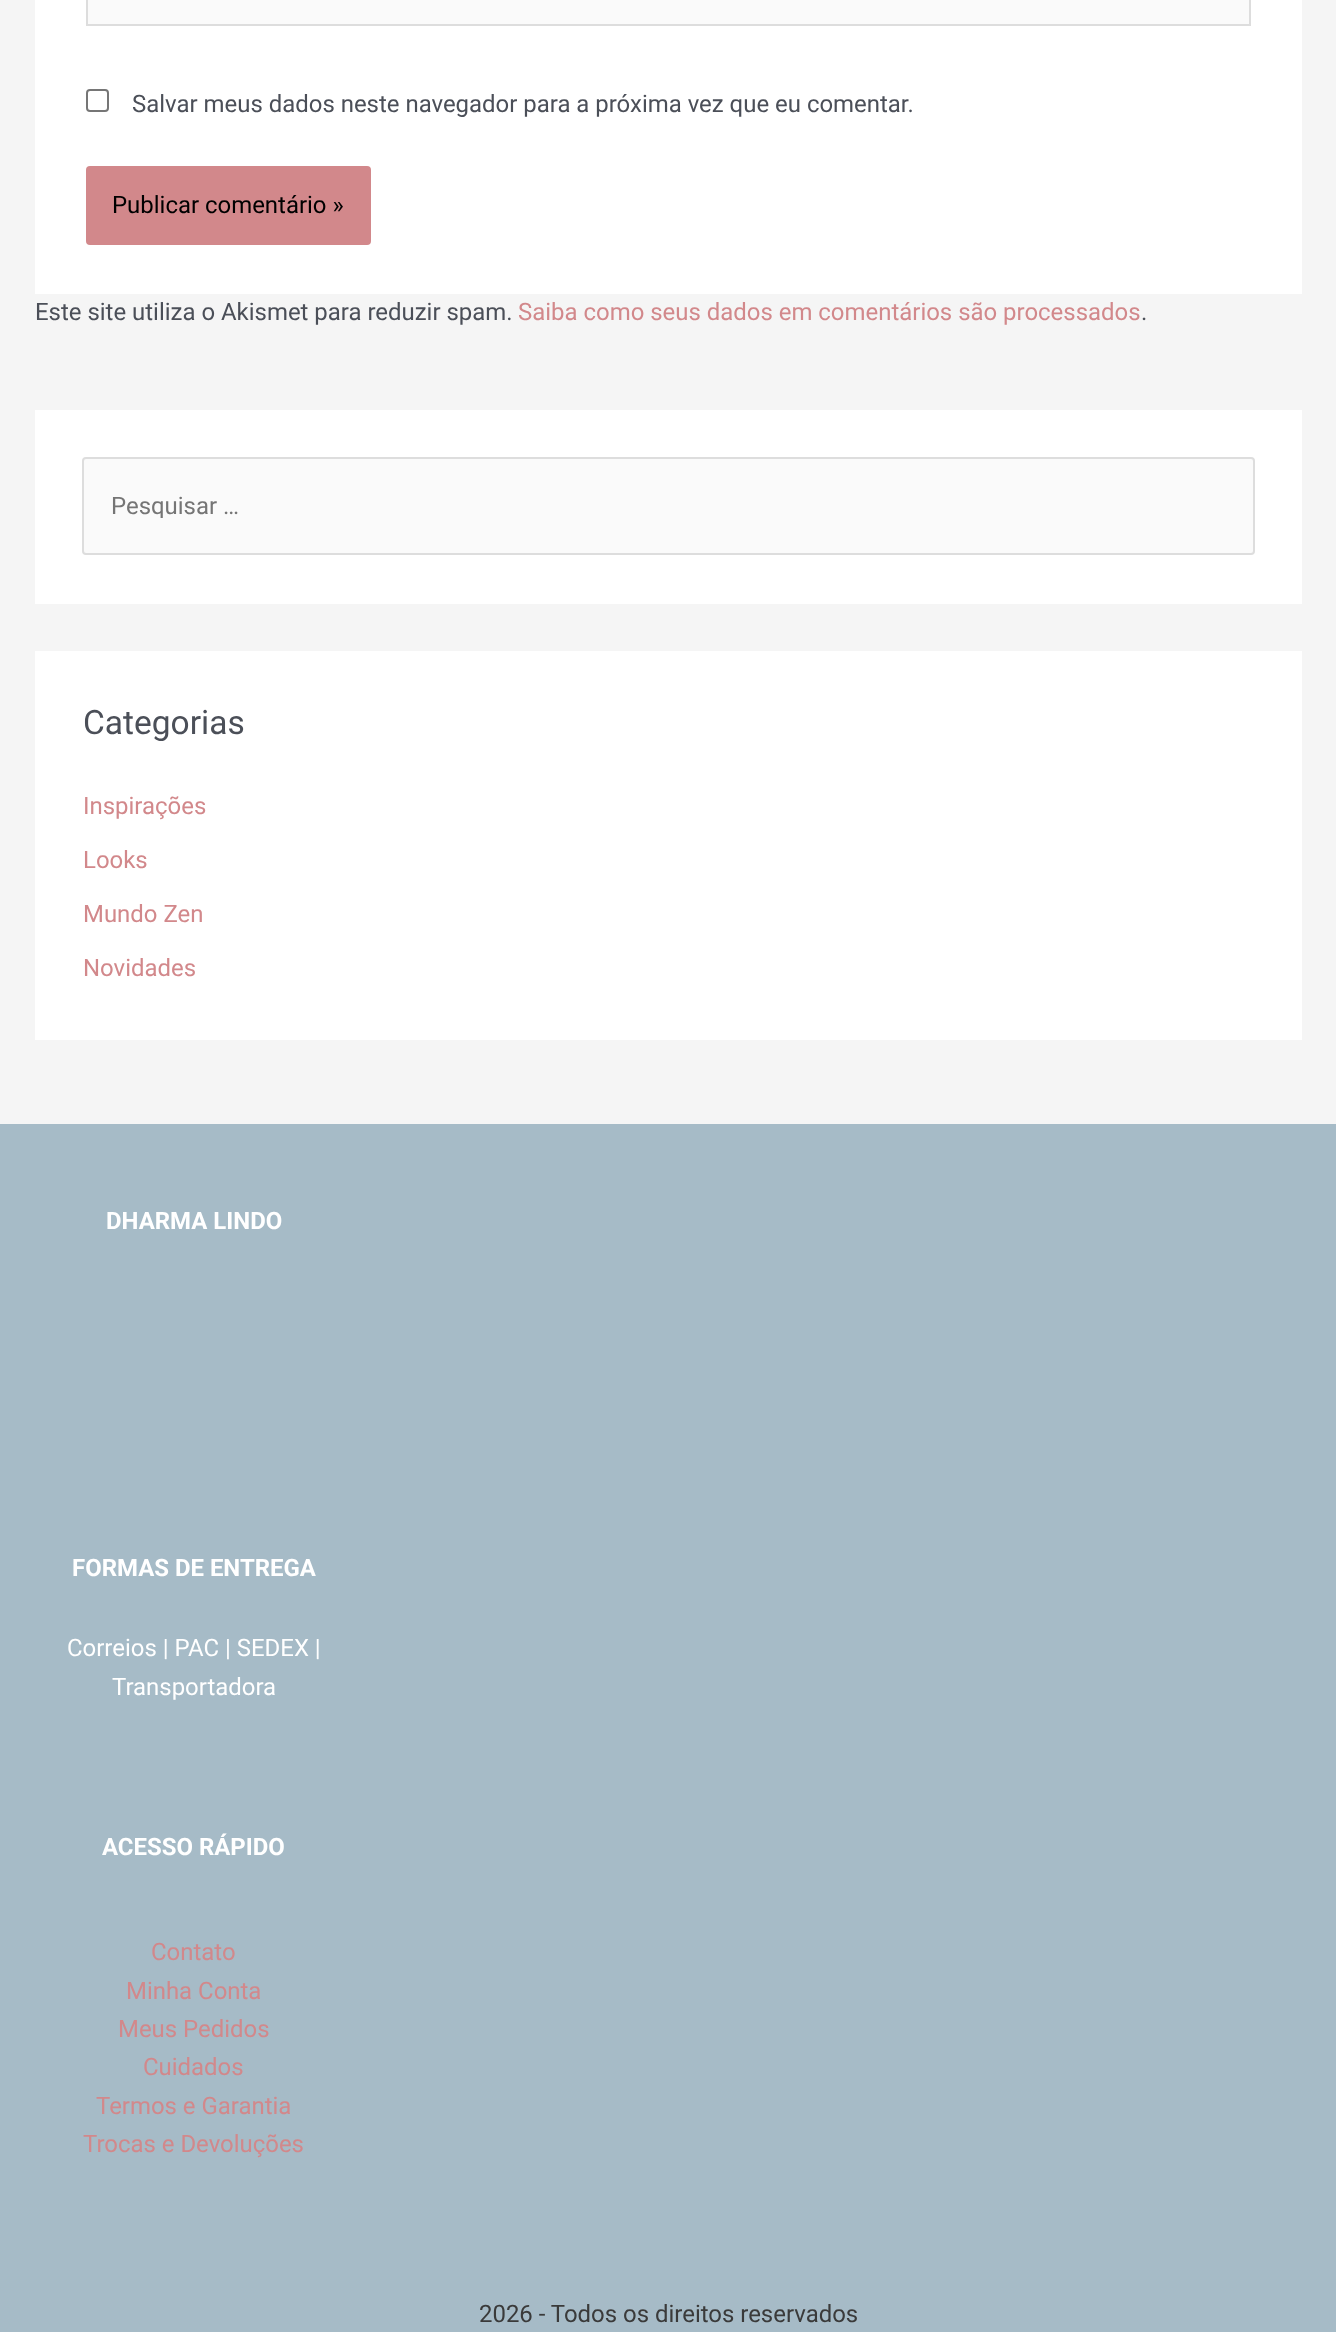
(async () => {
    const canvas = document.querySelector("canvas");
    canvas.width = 1336;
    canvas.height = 2332;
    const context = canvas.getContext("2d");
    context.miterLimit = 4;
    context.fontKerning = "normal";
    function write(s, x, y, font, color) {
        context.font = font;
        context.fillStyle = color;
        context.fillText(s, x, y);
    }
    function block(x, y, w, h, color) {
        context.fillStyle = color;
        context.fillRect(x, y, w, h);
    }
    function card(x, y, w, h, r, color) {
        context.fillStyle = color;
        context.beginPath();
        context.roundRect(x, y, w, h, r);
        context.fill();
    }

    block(0, 0, 1336, 2332, "rgb(245, 245, 245)");
    block(35, 0, 1267, 294, "rgb(255, 255, 255)");
    context.fillStyle = "rgb(250, 250, 250)";
    context.beginPath();
    context.rect(87, -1, 1163, 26);
    context.fill();
    context.strokeStyle = "rgb(221, 221, 221)";
    context.lineWidth = 2;
    context.stroke();
    context.beginPath();
    context.roundRect(87, 90, 21, 21, 3);
    context.strokeStyle = "rgb(118, 118, 118)";
    context.stroke();
    write("Salvar meus dados neste navegador para a próxima vez que eu comentar.", 132, 112, "23.95px Roboto", "rgb(75, 79, 88)");
    card(86, 166, 285, 79, 4, "rgb(210, 136, 139)");
    write("Publicar comentário »", 112, 213, "23.95px Roboto", "rgb(0, 0, 0)");
    write("Este site utiliza o Akismet para reduzir spam.", 35, 320, "23.95px Roboto", "rgb(75, 79, 88)");
    write("Saiba como seus dados em comentários são processados", 518, 320, "23.95px Roboto", "rgb(210, 136, 139)");
    write(".", 1141, 320, "23.95px Roboto", "rgb(75, 79, 88)");
    block(35, 410, 1267, 194, "rgb(255, 255, 255)");
    context.fillStyle = "rgb(250, 250, 250)";
    context.beginPath();
    context.roundRect(83, 458, 1171, 96, 3);
    context.fill();
    context.strokeStyle = "rgb(221, 221, 221)";
    context.stroke();
    context.save();
    context.beginPath();
    context.rect(110, 490, 1057, 28);
    context.clip();
    write("Pesquisar …", 111, 514, "23.95px Roboto", "rgb(117, 117, 117)");
    context.restore();
    block(35, 651, 1267, 389, "rgb(255, 255, 255)");
    write("Categorias", 83, 734, "33.5px Roboto", "rgb(75, 79, 88)");
    write("Inspirações", 83, 814, "23.95px Roboto", "rgb(210, 136, 139)");
    write("Looks", 83, 868, "23.95px Roboto", "rgb(210, 136, 139)");
    write("Mundo Zen", 83, 922, "23.95px Roboto", "rgb(210, 136, 139)");
    write("Novidades", 83, 976, "23.95px Roboto", "rgb(210, 136, 139)");
    block(0, 1124, 1336, 1208, "rgb(166, 187, 199)");
    write("DHARMA LINDO", 106, 1229, "bold 23.95px Roboto", "rgb(255, 255, 255)");
    write("FORMAS DE ENTREGA", 72, 1576, "bold 23.95px Roboto", "rgb(255, 255, 255)");
    write("Correios | PAC | SEDEX |", 67, 1656, "23.95px Roboto", "rgb(255, 255, 255)");
    write("Transportadora", 112, 1695, "23.95px Roboto", "rgb(255, 255, 255)");
    write("ACESSO RÁPIDO", 102, 1855, "bold 23.95px Roboto", "rgb(255, 255, 255)");
    write("Contato", 151, 1960, "23.95px Roboto", "rgb(210, 136, 139)");
    write("Minha Conta", 126, 1999, "23.95px Roboto", "rgb(210, 136, 139)");
    write("Meus Pedidos", 118, 2037, "23.95px Roboto", "rgb(210, 136, 139)");
    write("Cuidados", 143, 2075, "23.95px Roboto", "rgb(210, 136, 139)");
    write("Termos e Garantia", 96, 2114, "23.95px Roboto", "rgb(210, 136, 139)");
    write("Trocas e Devoluções", 83, 2152, "23.95px Roboto", "rgb(210, 136, 139)");
    write("2026 - Todos os direitos reservados", 479, 2322, "23.95px Roboto", "rgb(58, 58, 58)");
})();
